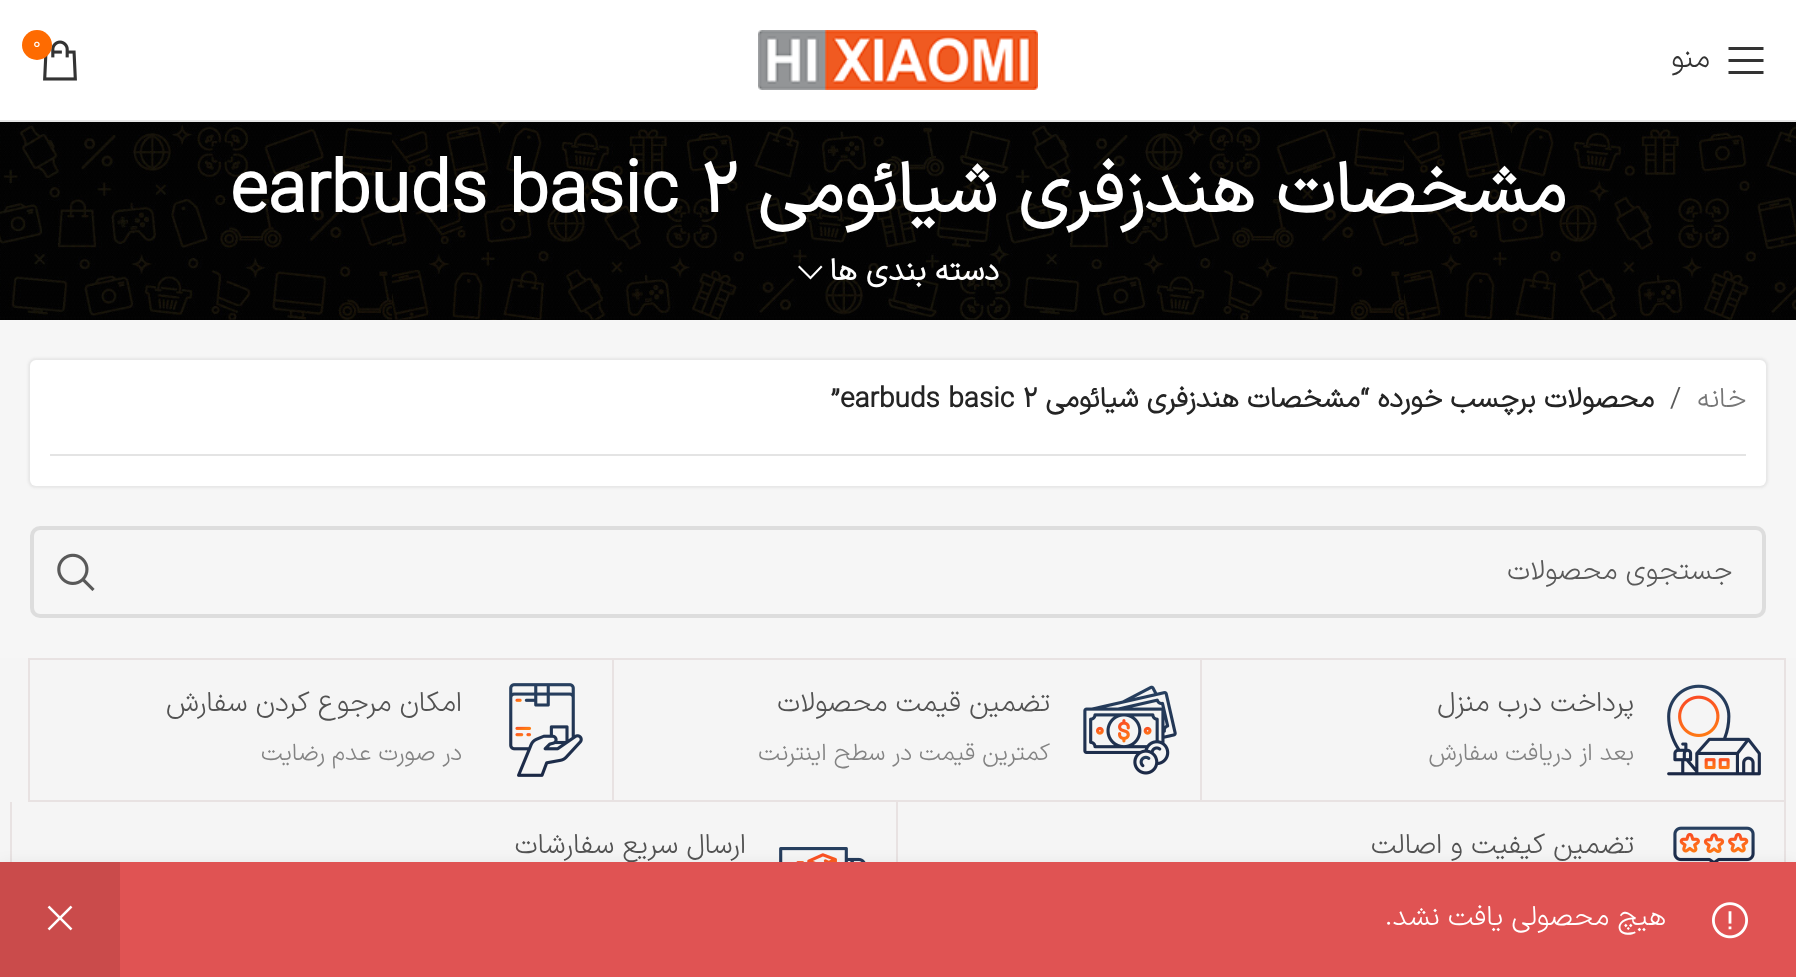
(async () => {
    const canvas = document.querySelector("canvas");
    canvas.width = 1796;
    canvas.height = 977;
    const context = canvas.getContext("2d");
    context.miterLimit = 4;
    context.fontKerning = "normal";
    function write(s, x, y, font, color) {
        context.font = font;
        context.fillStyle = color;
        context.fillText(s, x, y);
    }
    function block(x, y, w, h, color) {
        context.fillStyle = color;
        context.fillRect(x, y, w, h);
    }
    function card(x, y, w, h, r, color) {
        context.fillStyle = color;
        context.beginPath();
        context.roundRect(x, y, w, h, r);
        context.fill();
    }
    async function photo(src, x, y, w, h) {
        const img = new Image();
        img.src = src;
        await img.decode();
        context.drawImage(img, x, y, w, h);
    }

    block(0, 0, 1796, 977, "rgb(255, 255, 255)");
    block(0, 120, 1796, 2, "rgb(230, 230, 230)");
    await photo("media/1.png", 758, 30, 280, 60);
    await photo("media/2.png", 43, 40, 34, 41);
    context.fillStyle = "rgb(254, 107, 1)";
    context.beginPath();
    context.arc(37, 45, 15, 0, Math.PI * 2);
    context.fill();
    write("0", 33, 48, "300 18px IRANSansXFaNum", "rgb(255, 255, 255)");
    context.fillStyle = "rgb(51, 51, 51)";
    context.beginPath();
    context.moveTo(1728.5, 50);
    context.lineTo(1763.5, 50);
    context.lineTo(1763.5, 47);
    context.lineTo(1728.5, 47);
    context.closePath();
    context.moveTo(1728.5, 62);
    context.lineTo(1763.5, 62);
    context.lineTo(1763.5, 59);
    context.lineTo(1728.5, 59);
    context.closePath();
    context.moveTo(1728.5, 74);
    context.lineTo(1763.5, 74);
    context.lineTo(1763.5, 71);
    context.lineTo(1728.5, 71);
    context.closePath();
    context.fill();
    context.direction = "rtl";
    write("منو", 1710, 67, "300 30px IRANSansXFaNum", "rgb(51, 51, 51)");
    block(0, 320, 1796, 338, "rgb(246, 246, 246)");
    await photo("media/3.png", 0, 122, 1796, 198);
    write("مشخصات هندزفری شیائومی", 1566, 212, "bold 72px IRANSansXFaNum", "rgb(255, 255, 255)");
    context.direction = "ltr";
    write("earbuds basic 2", 230, 212, "bold 72px IRANSansXFaNum", "rgb(255, 255, 255)");
    context.direction = "rtl";
    write("دسته بندی ها", 999, 280, "bold 30.75px IRANSansXFaNum", "rgb(255, 255, 255)");
    context.beginPath();
    context.moveTo(821, 265.5);
    context.lineTo(810.5, 276.5);
    context.lineTo(799.5, 265.5);
    context.lineTo(798, 267);
    context.lineTo(810.5, 279.5);
    context.lineTo(822.5, 267);
    context.closePath();
    context.fill();
    context.fillStyle = "rgb(230, 230, 230)";
    context.filter = "blur(1px)";
    context.beginPath();
    context.roundRect(28, 358, 1740, 130, 8);
    context.fill();
    context.filter = "none";
    card(30, 360, 1736, 126, 6, "rgb(255, 255, 255)");
    block(50, 454, 1696, 2, "rgb(228, 228, 228)");
    write("خانه", 1746, 407, "300 28px IRANSansXFaNum", "rgb(118, 118, 118)");
    context.direction = "ltr";
    write("/", 1670, 407, "300 28px IRANSansXFaNum", "rgb(89, 89, 89)");
    context.direction = "rtl";
    write("محصولات برچسب خورده", 1654, 407, "bold 28px IRANSansXFaNum", "rgb(36, 36, 36)");
    write("“مشخصات هندزفری شیائومی", 1369, 407, "bold 28px IRANSansXFaNum", "rgb(36, 36, 36)");
    context.direction = "ltr";
    write("”earbuds basic 2", 831, 407, "bold 28px IRANSansXFaNum", "rgb(36, 36, 36)");
    context.beginPath();
    context.roundRect(32, 528, 1732, 88, 8);
    context.strokeStyle = "rgb(221, 221, 221)";
    context.lineWidth = 4;
    context.stroke();
    context.direction = "rtl";
    write("جستجوی محصولات", 1732, 579, "300 28px IRANSansXFaNum", "rgb(89, 89, 89)");
    await photo("media/4.png", 57, 553, 38, 38);
    block(0, 658, 1796, 204, "rgb(245, 245, 245)");
    write("ارسال سریع سفارشات", 746, 853, "300 28px IRANSansXFaNum", "rgb(82, 82, 82)");
    block(1784, 802, 2, 60, "rgb(232, 226, 226)");
    await photo("media/10.png", 1673, 826, 82, 36);
    block(896, 802, 2, 60, "rgb(232, 226, 226)");
    block(10, 802, 2, 60, "rgb(232, 226, 226)");
    await photo("media/11.png", 779, 847, 87, 15);
    context.fillStyle = "rgba(0, 0, 0, 0.12)";
    context.filter = "blur(9px)";
    context.beginPath();
    context.rect(0, 868, 1796, 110);
    context.fill();
    context.filter = "none";
    block(120, 862, 1676, 115, "rgb(224, 83, 83)");
    await photo("media/5.png", 1712, 902, 36, 37);
    write("هیچ محصولی یافت نشد.", 1666, 925, "300 28px IRANSansXFaNum", "rgb(255, 255, 255)");
    block(0, 862, 120, 115, "rgb(202, 75, 75)");
    await photo("media/6.png", 47, 905, 26, 26);
    context.strokeStyle = "rgb(232, 226, 226)";
    context.lineWidth = 2;
    context.strokeRect(1201, 659, 584, 142);
    await photo("media/7.png", 1667, 684, 94, 92);
    write("پرداخت درب منزل", 1634, 711, "300 28px IRANSansXFaNum", "rgb(82, 82, 82)");
    write("بعد از دریافت سفارش", 1634, 760, "300 24px IRANSansXFaNum", "rgb(131, 131, 131)");
    block(614, 658, 586, 2, "rgb(232, 226, 226)");
    block(614, 800, 586, 2, "rgb(232, 226, 226)");
    await photo("media/8.png", 1083, 685, 94, 90);
    write("تضمین قیمت محصولات", 1050, 711, "300 28px IRANSansXFaNum", "rgb(82, 82, 82)");
    write("کمترین قیمت در سطح اینترنت", 1050, 760, "300 24px IRANSansXFaNum", "rgb(131, 131, 131)");
    context.strokeRect(29, 659, 584, 142);
    await photo("media/9.png", 509, 683, 74, 94);
    write("امکان مرجوع کردن سفارش", 462, 711, "300 28px IRANSansXFaNum", "rgb(82, 82, 82)");
    write("در صورت عدم رضایت", 462, 760, "300 24px IRANSansXFaNum", "rgb(131, 131, 131)");
    write("تضمین کیفیت و اصالت", 1634, 853, "300 28px IRANSansXFaNum", "rgb(82, 82, 82)");
})();
